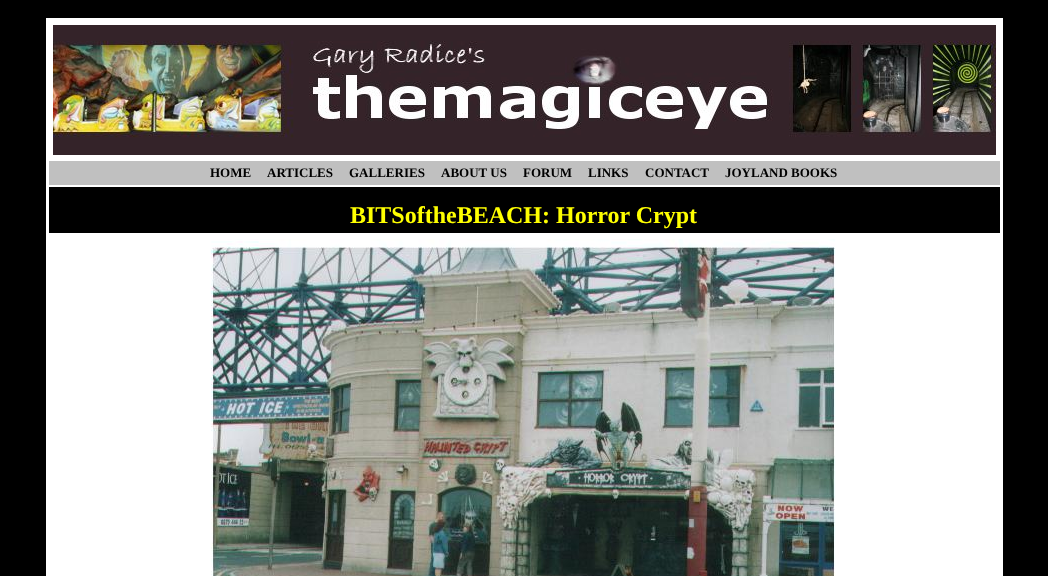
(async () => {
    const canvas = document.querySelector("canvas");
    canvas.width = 1048;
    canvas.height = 576;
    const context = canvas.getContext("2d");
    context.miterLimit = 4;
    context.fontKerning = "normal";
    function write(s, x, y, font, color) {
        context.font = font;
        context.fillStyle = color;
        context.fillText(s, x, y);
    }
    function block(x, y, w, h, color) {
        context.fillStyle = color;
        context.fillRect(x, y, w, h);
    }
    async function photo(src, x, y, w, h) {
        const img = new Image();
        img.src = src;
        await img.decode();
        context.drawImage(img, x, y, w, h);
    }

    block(0, 0, 1048, 576, "rgb(0, 0, 0)");
    block(46, 18, 957, 558, "rgb(255, 255, 255)");
    await photo("media/1.png", 53, 25, 943, 130);
    block(49, 161, 951, 24, "rgb(192, 192, 192)");
    write("HOME", 210, 177, "bold 13px Liberation Serif", "rgb(0, 0, 0)");
    write("ARTICLES", 267, 177, "bold 13px Liberation Serif", "rgb(0, 0, 0)");
    write("GALLERIES", 349, 177, "bold 13px Liberation Serif", "rgb(0, 0, 0)");
    write("ABOUT US", 441, 177, "bold 13px Liberation Serif", "rgb(0, 0, 0)");
    write("FORUM", 523, 177, "bold 13px Liberation Serif", "rgb(0, 0, 0)");
    write("LINKS", 588, 177, "bold 13px Liberation Serif", "rgb(0, 0, 0)");
    write("CONTACT", 645, 177, "bold 13px Liberation Serif", "rgb(0, 0, 0)");
    write("JOYLAND BOOKS", 725, 177, "bold 13px Liberation Serif", "rgb(0, 0, 0)");
    block(49, 187, 951, 46, "rgb(0, 0, 0)");
    write("BITSoftheBEACH: Horror Crypt", 350, 223, "bold 24px Liberation Serif", "rgb(255, 255, 0)");
    await photo("media/2.png", 210, 239, 626, 337);
})();
